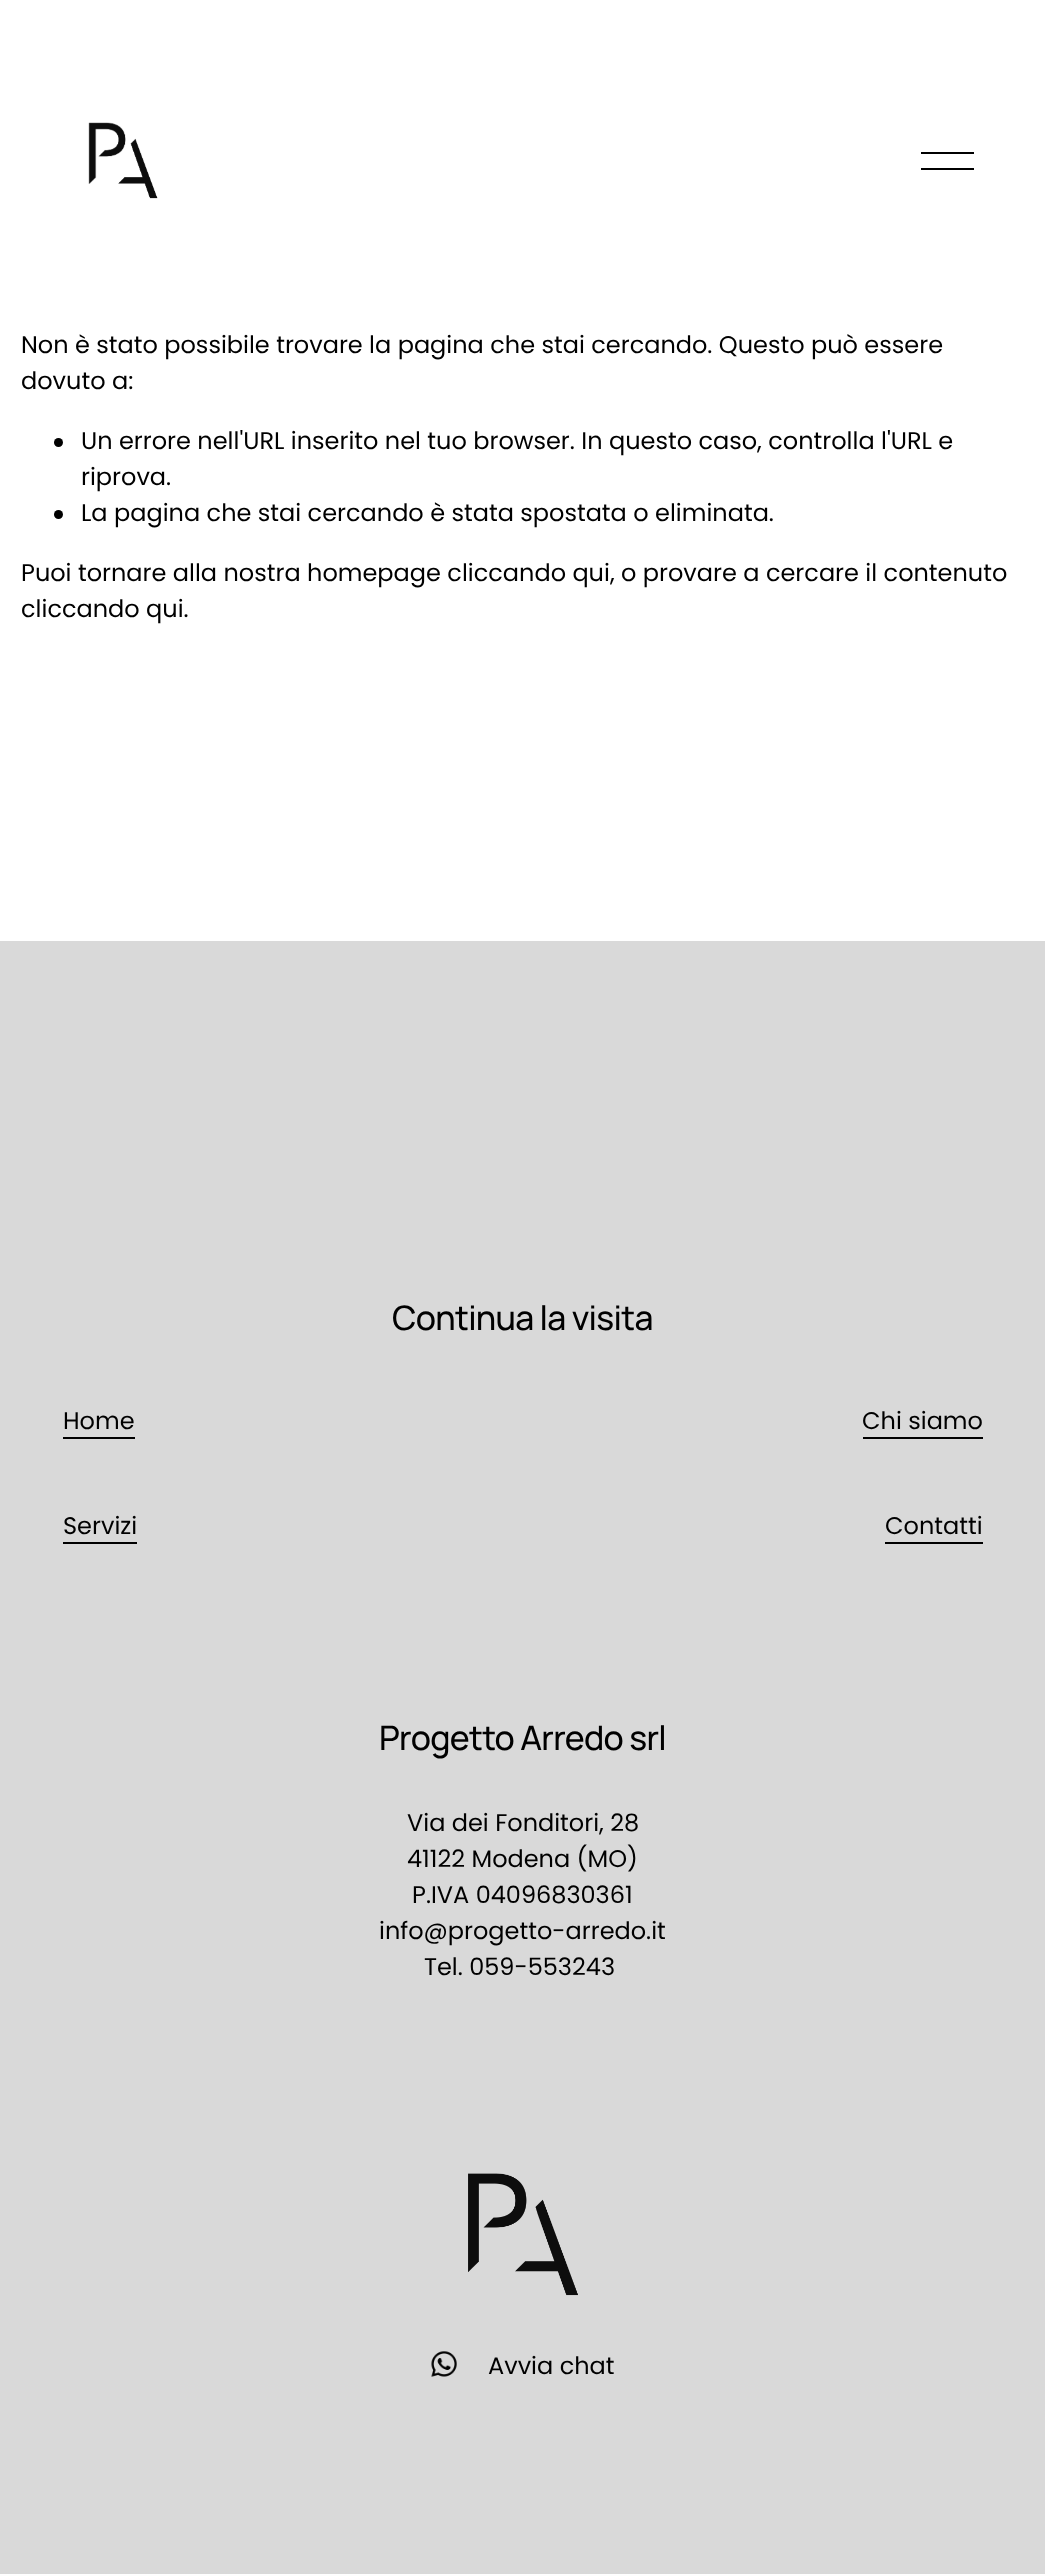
(async () => {
    const canvas = document.querySelector("canvas");
    canvas.width = 1045;
    canvas.height = 2574;
    const context = canvas.getContext("2d");
    context.miterLimit = 4;
    context.fontKerning = "normal";
    function write(s, x, y, font, color) {
        context.font = font;
        context.fillStyle = color;
        context.fillText(s, x, y);
    }
    function block(x, y, w, h, color) {
        context.fillStyle = color;
        context.fillRect(x, y, w, h);
    }
    async function photo(src, x, y, w, h) {
        const img = new Image();
        img.src = src;
        await img.decode();
        context.drawImage(img, x, y, w, h);
    }

    block(0, 0, 1045, 2574, "rgb(255, 255, 255)");
    await photo("media/1.png", 88, 122, 70, 77);
    block(921, 152, 53, 2, "rgb(0, 0, 0)");
    block(921, 168, 53, 2, "rgb(0, 0, 0)");
    write("Non è stato possibile trovare la pagina che stai cercando. Questo può essere", 21, 353, "24px Poppins", "rgb(0, 0, 0)");
    write("dovuto a:", 21, 389, "24px Poppins", "rgb(0, 0, 0)");
    context.beginPath();
    context.arc(58.5, 442.5, 4.5, 0, Math.PI * 2);
    context.fill();
    write("Un errore nell'URL inserito nel tuo browser. In questo caso, controlla l'URL e", 81, 449, "24px Poppins", "rgb(0, 0, 0)");
    write("riprova.", 81, 485, "24px Poppins", "rgb(0, 0, 0)");
    context.beginPath();
    context.arc(58.5, 514.5, 4.5, 0, Math.PI * 2);
    context.fill();
    write("La pagina che stai cercando è stata spostata o eliminata.", 81, 521, "24px Poppins", "rgb(0, 0, 0)");
    write("Puoi tornare alla nostra homepage cliccando qui, o provare a cercare il contenuto", 21, 581, "24px Poppins", "rgb(0, 0, 0)");
    write("cliccando qui.", 21, 617, "24px Poppins", "rgb(0, 0, 0)");
    block(0, 941, 1045, 1633, "rgb(217, 217, 217)");
    context.letterSpacing = "-0.7px";
    write("Continua la visita", 392, 1330, "500 33.75px Manrope", "rgb(0, 0, 0)");
    block(63, 1437, 72, 2, "rgb(0, 0, 0)");
    context.letterSpacing = "0px";
    write("Home", 63, 1429, "24px Poppins", "rgb(0, 0, 0)");
    block(863, 1437, 120, 2, "rgb(0, 0, 0)");
    write("Chi siamo", 862, 1429, "24px Poppins", "rgb(0, 0, 0)");
    block(63, 1542, 74, 2, "rgb(0, 0, 0)");
    write("Servizi", 63, 1534, "24px Poppins", "rgb(0, 0, 0)");
    block(885, 1542, 98, 2, "rgb(0, 0, 0)");
    write("Contatti", 885, 1534, "24px Poppins", "rgb(0, 0, 0)");
    context.letterSpacing = "-0.7px";
    write("Progetto Arredo srl", 379, 1750, "500 33.75px Manrope", "rgb(0, 0, 0)");
    context.letterSpacing = "0px";
    write("Via dei Fonditori, 28", 407, 1831, "24px Poppins", "rgb(0, 0, 0)");
    write("41122 Modena (MO)", 407, 1867, "24px Poppins", "rgb(0, 0, 0)");
    write("P.IVA 04096830361", 412, 1903, "24px Poppins", "rgb(0, 0, 0)");
    write("info@progetto-arredo.it", 379, 1939, "24px Poppins", "rgb(0, 0, 0)");
    write("Tel. 059-553243", 424, 1975, "24px Poppins", "rgb(0, 0, 0)");
    await photo("media/2.png", 468, 2173, 110, 123);
    await photo("media/3.png", 431, 2351, 26, 26);
    write("Avvia chat", 488, 2374, "24px Poppins", "rgb(0, 0, 0)");
})();
